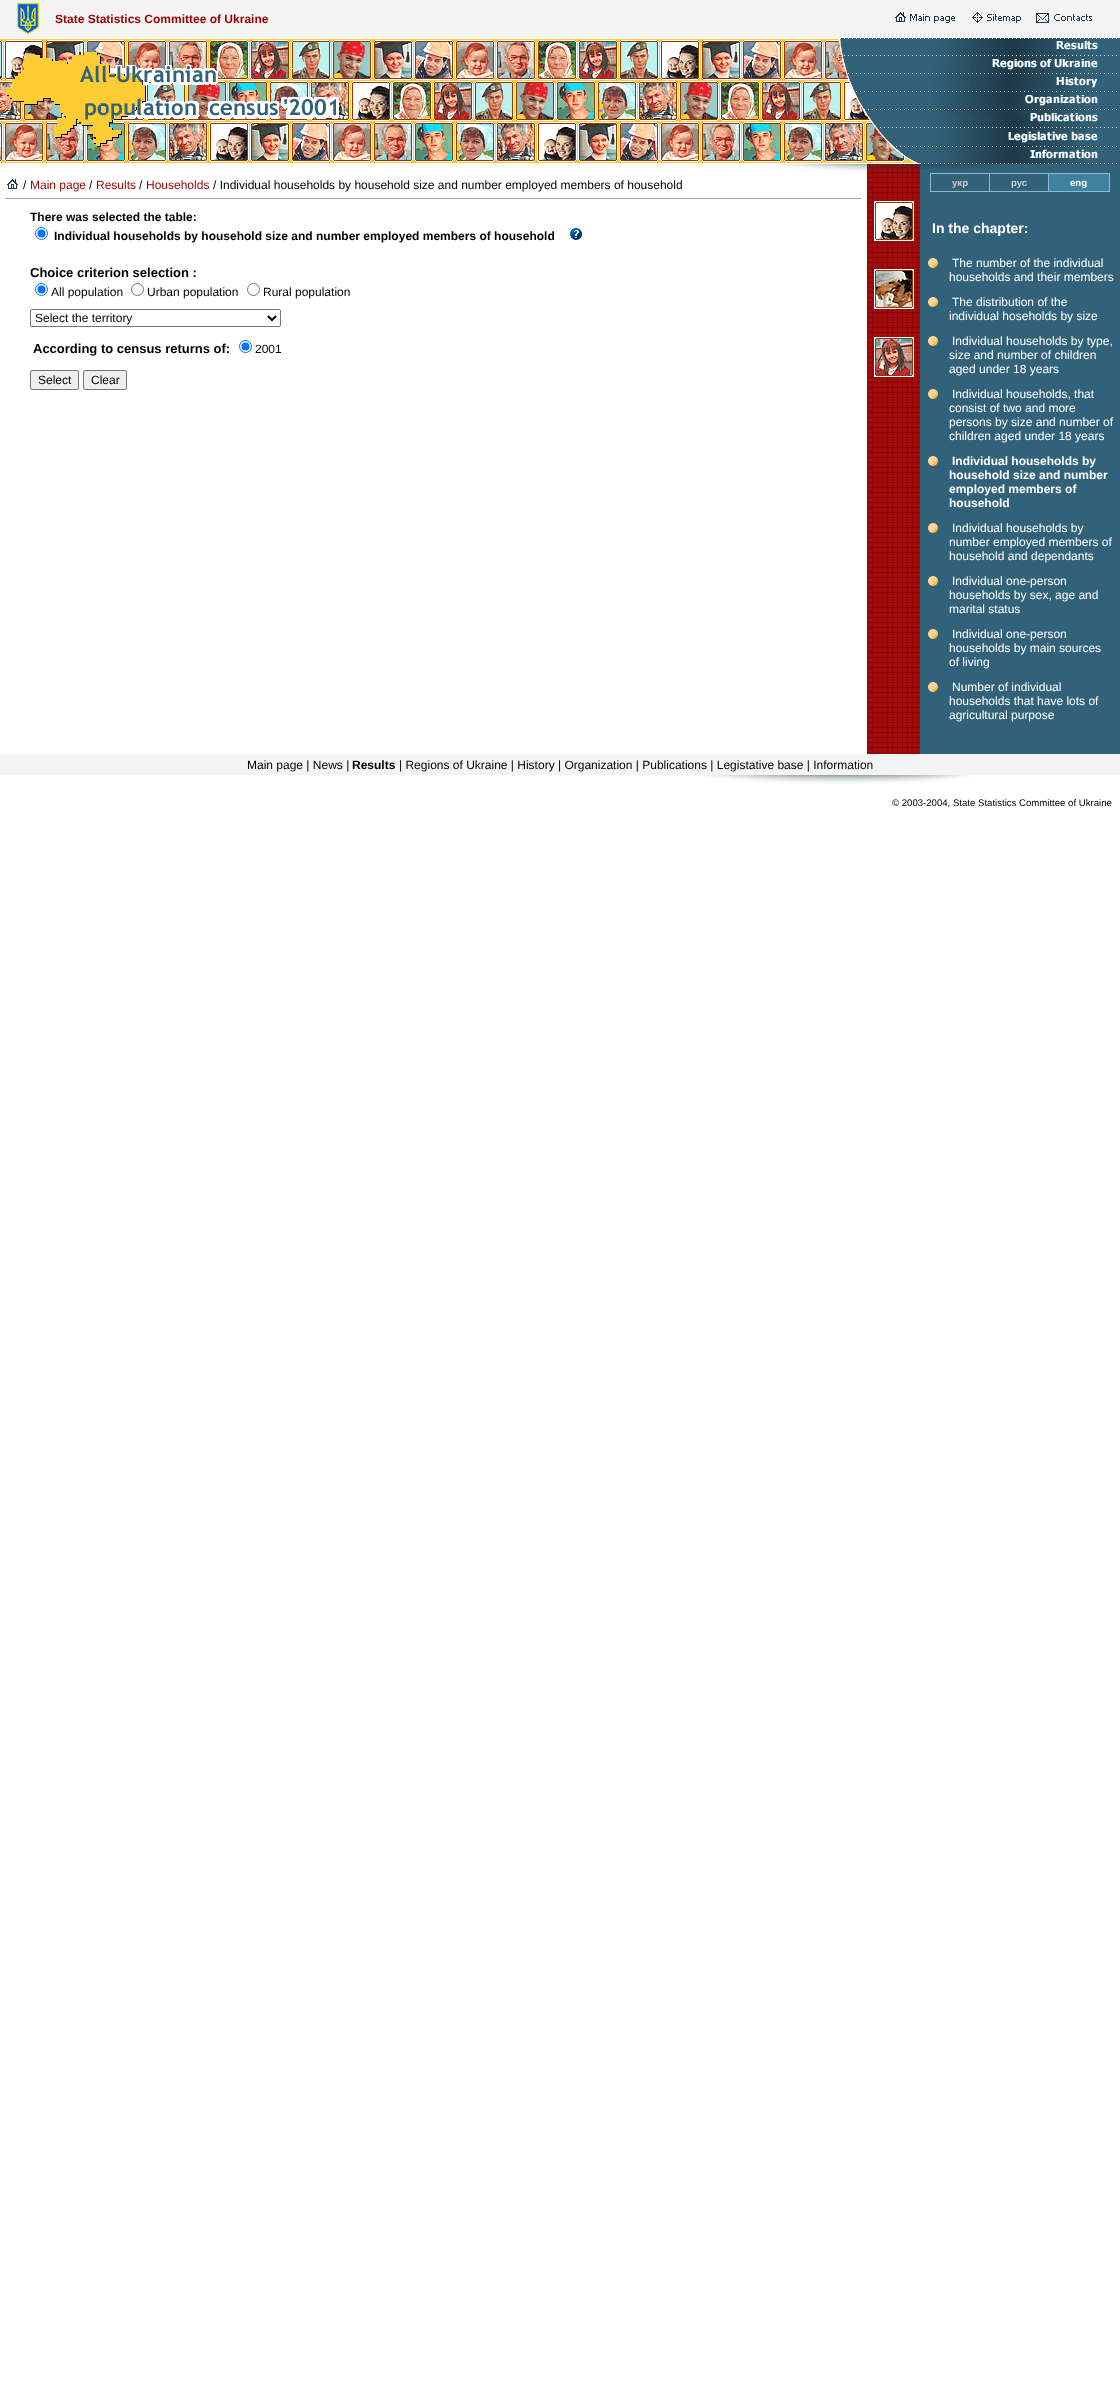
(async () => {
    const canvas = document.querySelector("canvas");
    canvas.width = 1120;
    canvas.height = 2399;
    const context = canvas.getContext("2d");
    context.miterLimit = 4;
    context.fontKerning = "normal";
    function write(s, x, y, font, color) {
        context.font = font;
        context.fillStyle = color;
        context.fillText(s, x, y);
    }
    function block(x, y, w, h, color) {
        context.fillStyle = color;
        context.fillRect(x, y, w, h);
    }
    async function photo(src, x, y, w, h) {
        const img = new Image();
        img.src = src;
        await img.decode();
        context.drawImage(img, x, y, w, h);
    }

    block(0, 0, 1120, 2399, "rgb(255, 255, 255)");
    block(0, 0, 1120, 38, "rgb(244, 244, 244)");
    await photo("media/1.png", 17, 3, 22, 31);
    write("State Statistics Committee of Ukraine", 55, 23, "bold 12px Liberation Sans", "rgb(153, 0, 0)");
    await photo("media/2.png", 895, 12, 60, 11);
    await photo("media/3.png", 972, 12, 49, 11);
    await photo("media/4.png", 1036, 13, 56, 10);
    await photo("media/5.png", 0, 38, 839, 126);
    await photo("media/6.png", 6, 52, 333, 95);
    block(839, 60, 21, 100, "rgb(49, 98, 121)");
    await photo("media/7.png", 839, 38, 81, 126);
    block(1117, 38, 3, 126, "rgb(49, 98, 121)");
    await photo("media/8.png", 920, 38, 197, 126);
    await photo("media/9.png", 1056, 41, 42, 9);
    await photo("media/10.png", 992, 59, 106, 11);
    await photo("media/11.png", 1056, 77, 42, 11);
    await photo("media/12.png", 1025, 95, 73, 11);
    await photo("media/13.png", 1030, 113, 68, 9);
    await photo("media/14.png", 1008, 131, 90, 12);
    await photo("media/15.png", 1030, 149, 68, 10);
    await photo("media/16.png", 782, 164, 138, 8);
    block(920, 164, 200, 590, "rgb(49, 98, 121)");
    await photo("media/17.png", 920, 164, 82, 6);
    await photo("media/18.png", 7, 179, 11, 10);
    write("/", 23, 189, "12px Liberation Sans", "rgb(0, 0, 0)");
    write("Main page", 30, 189, "12px Liberation Sans", "rgb(153, 0, 0)");
    write("/", 89, 189, "12px Liberation Sans", "rgb(0, 0, 0)");
    write("Results", 96, 189, "12px Liberation Sans", "rgb(153, 0, 0)");
    write("/", 139, 189, "12px Liberation Sans", "rgb(0, 0, 0)");
    write("Households", 146, 189, "12px Liberation Sans", "rgb(153, 0, 0)");
    write("/ Individual households by household size and number employed members of household", 213, 189, "12px Liberation Sans", "rgb(0, 0, 0)");
    block(5, 198, 857, 1, "rgb(159, 159, 159)");
    block(861, 198, 1, 1, "rgb(238, 238, 238)");
    write("There was selected the table:", 30, 221, "bold 12px Liberation Sans", "rgb(0, 0, 0)");
    context.beginPath();
    context.arc(41.5, 233.5, 6, 0, Math.PI * 2);
    context.strokeStyle = "rgb(0, 117, 255)";
    context.stroke();
    context.fillStyle = "rgb(0, 117, 255)";
    context.beginPath();
    context.arc(41.5, 233.5, 4, 0, Math.PI * 2);
    context.fill();
    write("Individual households by household size and number employed members of household", 54, 240, "bold 12px Liberation Sans", "rgb(0, 0, 0)");
    await photo("media/19.png", 570, 228, 12, 12);
    write("Choice criterion selection :", 30, 277, "bold 13px Liberation Sans", "rgb(0, 0, 0)");
    context.beginPath();
    context.arc(41.5, 289.5, 6, 0, Math.PI * 2);
    context.stroke();
    context.fillStyle = "rgb(0, 117, 255)";
    context.beginPath();
    context.arc(41.5, 289.5, 4, 0, Math.PI * 2);
    context.fill();
    write("All population", 51, 296, "12px Liberation Sans", "rgb(0, 0, 0)");
    context.beginPath();
    context.arc(137.5, 289.5, 6, 0, Math.PI * 2);
    context.strokeStyle = "rgb(118, 118, 118)";
    context.stroke();
    write("Urban population", 147, 296, "12px Liberation Sans", "rgb(0, 0, 0)");
    context.beginPath();
    context.arc(253.5, 289.5, 6, 0, Math.PI * 2);
    context.stroke();
    write("Rural population", 263, 296, "12px Liberation Sans", "rgb(0, 0, 0)");
    context.beginPath();
    context.roundRect(30.5, 309.5, 250, 17, 1.5);
    context.stroke();
    context.beginPath();
    context.moveTo(268, 316);
    context.lineTo(272, 320);
    context.lineTo(276, 316);
    context.strokeStyle = "rgb(0, 0, 0)";
    context.lineWidth = 2;
    context.stroke();
    write("Select the territory", 35, 322, "12px Liberation Sans", "rgb(0, 0, 0)");
    write("According to census returns of:", 33, 353, "bold 13px Liberation Sans", "rgb(0, 0, 0)");
    context.beginPath();
    context.arc(245.5, 346.5, 6, 0, Math.PI * 2);
    context.strokeStyle = "rgb(0, 117, 255)";
    context.lineWidth = 1;
    context.stroke();
    context.fillStyle = "rgb(0, 117, 255)";
    context.beginPath();
    context.arc(245.5, 346.5, 4, 0, Math.PI * 2);
    context.fill();
    write("2001", 255, 353, "12px Liberation Sans", "rgb(0, 0, 0)");
    context.fillStyle = "rgb(239, 239, 239)";
    context.beginPath();
    context.roundRect(30.5, 370.5, 48, 19, 1.5);
    context.fill();
    context.strokeStyle = "rgb(118, 118, 118)";
    context.stroke();
    write("Select", 38, 384, "12px Liberation Sans", "rgb(0, 0, 0)");
    context.fillStyle = "rgb(239, 239, 239)";
    context.beginPath();
    context.roundRect(83.5, 370.5, 43, 19, 1.5);
    context.fill();
    context.stroke();
    write("Clear", 91, 384, "12px Liberation Sans", "rgb(0, 0, 0)");
    block(867, 172, 53, 582, "rgb(153, 0, 0)");
    await photo("media/20.png", 868, 173, 52, 581);
    await photo("media/21.png", 874, 201, 40, 40);
    await photo("media/22.png", 874, 269, 40, 40);
    await photo("media/23.png", 874, 337, 40, 40);
    block(930, 173, 180, 19, "rgb(137, 186, 207)");
    block(931, 174, 58, 17, "rgb(49, 98, 121)");
    write("укр", 952, 186, "bold 9.6px Liberation Sans", "rgb(204, 204, 204)");
    block(990, 174, 58, 17, "rgb(49, 98, 121)");
    write("рус", 1011, 186, "bold 9.6px Liberation Sans", "rgb(204, 204, 204)");
    block(1049, 174, 60, 17, "rgb(64, 129, 159)");
    write("eng", 1070, 186, "bold 9.6px Liberation Sans", "rgb(255, 255, 255)");
    write("In the chapter:", 932, 233, "bold 14px Liberation Sans", "rgb(255, 255, 255)");
    await photo("media/24.png", 928, 258, 10, 10);
    write("The number of the individual", 952, 267, "12px Liberation Sans", "rgb(255, 255, 255)");
    write("households and their members", 949, 281, "12px Liberation Sans", "rgb(255, 255, 255)");
    await photo("media/24.png", 928, 297, 10, 10);
    write("The distribution of the", 952, 306, "12px Liberation Sans", "rgb(255, 255, 255)");
    write("individual hoseholds by size", 949, 320, "12px Liberation Sans", "rgb(255, 255, 255)");
    await photo("media/24.png", 928, 336, 10, 10);
    write("Individual households by type,", 952, 345, "12px Liberation Sans", "rgb(255, 255, 255)");
    write("size and number of children", 949, 359, "12px Liberation Sans", "rgb(255, 255, 255)");
    write("aged under 18 years", 949, 373, "12px Liberation Sans", "rgb(255, 255, 255)");
    await photo("media/24.png", 928, 389, 10, 10);
    write("Individual households, that", 952, 398, "12px Liberation Sans", "rgb(255, 255, 255)");
    write("consist of two and more", 949, 412, "12px Liberation Sans", "rgb(255, 255, 255)");
    write("persons by size and number of", 949, 426, "12px Liberation Sans", "rgb(255, 255, 255)");
    write("children aged under 18 years", 949, 440, "12px Liberation Sans", "rgb(255, 255, 255)");
    await photo("media/24.png", 928, 456, 10, 10);
    write("Individual households by", 952, 465, "bold 12px Liberation Sans", "rgb(255, 255, 255)");
    write("household size and number", 949, 479, "bold 12px Liberation Sans", "rgb(255, 255, 255)");
    write("employed members of", 949, 493, "bold 12px Liberation Sans", "rgb(255, 255, 255)");
    write("household", 949, 507, "bold 12px Liberation Sans", "rgb(255, 255, 255)");
    await photo("media/24.png", 928, 523, 10, 10);
    write("Individual households by", 952, 532, "12px Liberation Sans", "rgb(255, 255, 255)");
    write("number employed members of", 949, 546, "12px Liberation Sans", "rgb(255, 255, 255)");
    write("household and dependants", 949, 560, "12px Liberation Sans", "rgb(255, 255, 255)");
    await photo("media/24.png", 928, 576, 10, 10);
    write("Individual one-person", 952, 585, "12px Liberation Sans", "rgb(255, 255, 255)");
    write("households by sex, age and", 949, 599, "12px Liberation Sans", "rgb(255, 255, 255)");
    write("marital status", 949, 613, "12px Liberation Sans", "rgb(255, 255, 255)");
    await photo("media/24.png", 928, 629, 10, 10);
    write("Individual one-person", 952, 638, "12px Liberation Sans", "rgb(255, 255, 255)");
    write("households by main sources", 949, 652, "12px Liberation Sans", "rgb(255, 255, 255)");
    write("of living", 949, 666, "12px Liberation Sans", "rgb(255, 255, 255)");
    await photo("media/24.png", 928, 682, 10, 10);
    write("Number of individual", 952, 691, "12px Liberation Sans", "rgb(255, 255, 255)");
    write("households that have lots of", 949, 705, "12px Liberation Sans", "rgb(255, 255, 255)");
    write("agricultural purpose", 949, 719, "12px Liberation Sans", "rgb(255, 255, 255)");
    block(0, 754, 1120, 21, "rgb(244, 244, 244)");
    write("Main page | News |", 247, 769, "12px Liberation Sans", "rgb(0, 0, 0)");
    write("Results", 352, 769, "bold 12px Liberation Sans", "rgb(0, 0, 0)");
    write("| Regions of Ukraine | History | Organization | Publications | Legistative base | Information", 399, 769, "12px Liberation Sans", "rgb(0, 0, 0)");
    await photo("media/25.png", 702, 775, 271, 9);
    write("© 2003-2004, State Statistics Committee of Ukraine", 892, 806, "9.6px Liberation Sans", "rgb(0, 0, 0)");
})();
